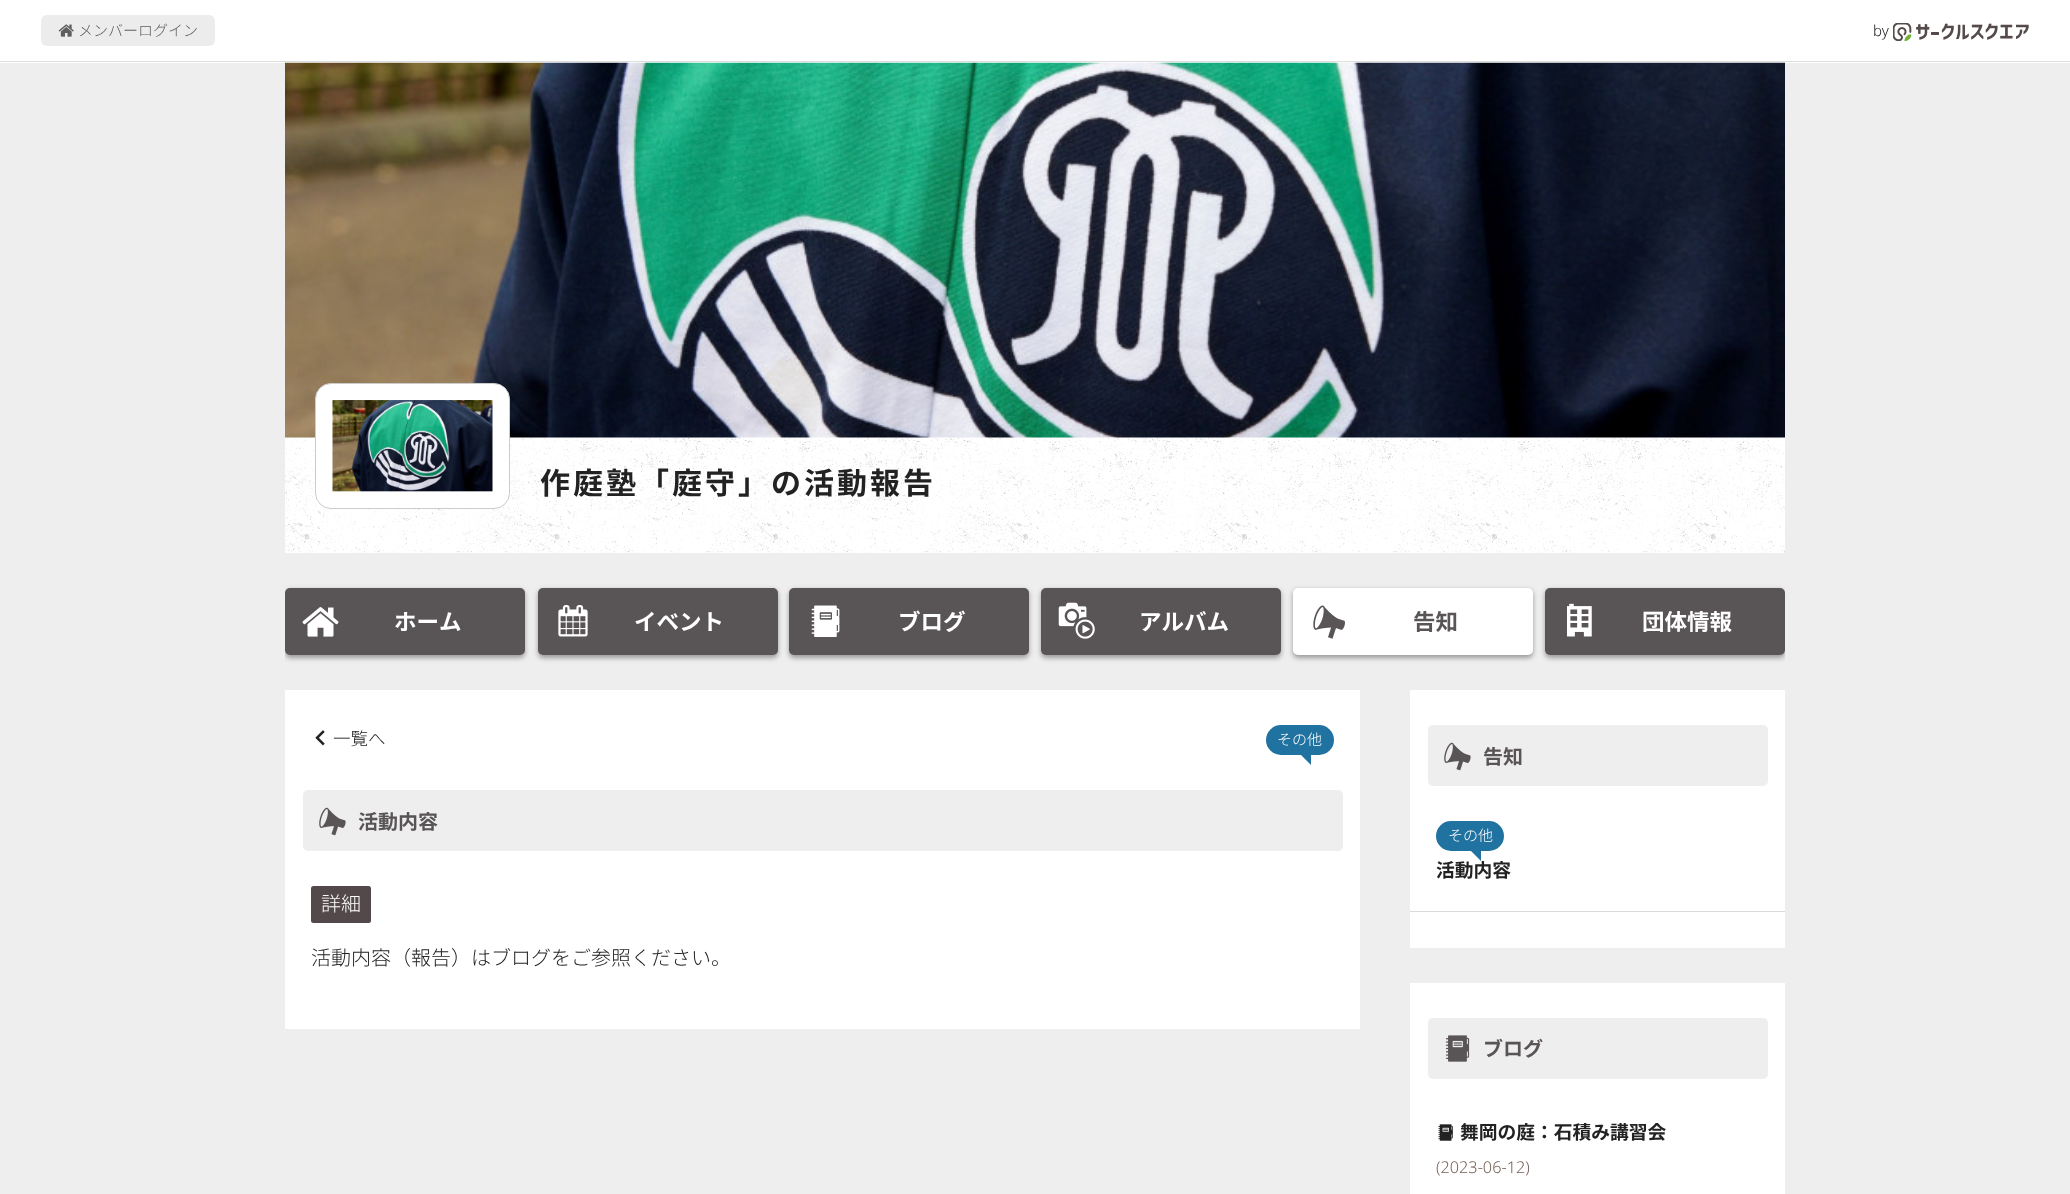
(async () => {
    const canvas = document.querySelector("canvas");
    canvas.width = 2070;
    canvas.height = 1194;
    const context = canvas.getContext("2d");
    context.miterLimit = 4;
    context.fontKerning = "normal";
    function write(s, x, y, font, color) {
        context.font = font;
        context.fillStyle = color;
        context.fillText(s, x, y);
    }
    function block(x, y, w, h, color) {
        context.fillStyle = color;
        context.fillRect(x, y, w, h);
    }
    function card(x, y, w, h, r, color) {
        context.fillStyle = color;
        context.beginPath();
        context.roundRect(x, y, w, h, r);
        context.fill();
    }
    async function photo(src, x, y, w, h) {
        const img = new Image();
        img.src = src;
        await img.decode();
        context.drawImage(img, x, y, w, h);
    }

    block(0, 0, 2070, 1194, "rgb(238, 238, 238)");
    block(0, 0, 2070, 63, "rgb(255, 255, 255)");
    block(0, 61, 2070, 1, "rgb(221, 221, 221)");
    card(41, 15, 174, 31, 6, "rgb(236, 236, 236)");
    await photo("media/1.png", 58, 24, 16, 13);
    write("メンバーログイン", 78, 36, "300 15px Noto Sans CJK JP", "rgb(94, 94, 94)");
    write("by", 1873, 36, "300 15px Noto Sans", "rgb(34, 34, 34)");
    await photo("media/2.png", 1893, 23, 136, 18);
    block(285, 552, 1500, 1, "rgb(255, 255, 255)");
    await photo("media/3.png", 285, 438, 1500, 115);
    block(285, 437, 1500, 1, "rgb(255, 255, 255)");
    await photo("media/4.png", 285, 62, 1500, 376);
    context.beginPath();
    context.roundRect(315.5, 383.5, 194, 125, 15.5);
    context.fill();
    context.strokeStyle = "rgb(204, 204, 204)";
    context.stroke();
    await photo("media/5.png", 332, 400, 161, 92);
    context.letterSpacing = "3px";
    write("作庭塾「庭守」の活動報告", 540, 494, "bold 30px Noto Sans CJK JP", "rgb(34, 34, 34)");
    context.save();
    context.beginPath();
    context.rect(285, 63, 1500, 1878);
    context.clip();
    context.fillStyle = "rgba(0, 0, 0, 0.35)";
    context.filter = "blur(2.5px)";
    context.beginPath();
    context.roundRect(285, 590, 240, 68, 5);
    context.fill();
    context.filter = "none";
    context.restore();
    card(285, 588, 240, 67, 5, "rgb(89, 84, 85)");
    await photo("media/6.png", 302, 607, 37, 30);
    context.letterSpacing = "0px";
    write("ホーム", 394, 630, "bold 22.5px Noto Sans CJK JP", "rgb(255, 255, 255)");
    context.fillStyle = "rgba(0, 0, 0, 0.35)";
    context.filter = "blur(2.5px)";
    context.beginPath();
    context.roundRect(538, 590, 240, 68, 5);
    context.fill();
    context.filter = "none";
    card(538, 588, 240, 67, 5, "rgb(89, 84, 85)");
    await photo("media/7.png", 558, 605, 30, 32);
    write("イベント", 634, 630, "bold 22.5px Noto Sans CJK JP", "rgb(255, 255, 255)");
    context.fillStyle = "rgba(0, 0, 0, 0.35)";
    context.filter = "blur(2.5px)";
    context.beginPath();
    context.roundRect(789, 590, 240, 68, 5);
    context.fill();
    context.filter = "none";
    card(789, 588, 240, 67, 5, "rgb(89, 84, 85)");
    await photo("media/8.png", 811, 605, 29, 32);
    write("ブログ", 898, 630, "bold 22.5px Noto Sans CJK JP", "rgb(255, 255, 255)");
    context.fillStyle = "rgba(0, 0, 0, 0.35)";
    context.filter = "blur(2.5px)";
    context.beginPath();
    context.roundRect(1041, 590, 240, 68, 5);
    context.fill();
    context.filter = "none";
    card(1041, 588, 240, 67, 5, "rgb(89, 84, 85)");
    await photo("media/9.png", 1058, 602, 37, 37);
    write("アルバム", 1139, 630, "bold 22.5px Noto Sans CJK JP", "rgb(255, 255, 255)");
    context.fillStyle = "rgba(0, 0, 0, 0.35)";
    context.filter = "blur(2.5px)";
    context.beginPath();
    context.roundRect(1293, 590, 240, 68, 5);
    context.fill();
    context.filter = "none";
    card(1293, 588, 240, 67, 5, "rgb(255, 255, 255)");
    await photo("media/10.png", 1313, 605, 32, 34);
    write("告知", 1413, 630, "bold 22.5px Noto Sans CJK JP", "rgb(89, 84, 85)");
    context.save();
    context.beginPath();
    context.rect(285, 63, 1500, 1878);
    context.clip();
    context.fillStyle = "rgba(0, 0, 0, 0.35)";
    context.filter = "blur(2.5px)";
    context.beginPath();
    context.roundRect(1545, 590, 240, 68, 5);
    context.fill();
    context.filter = "none";
    context.restore();
    card(1545, 588, 240, 67, 5, "rgb(89, 84, 85)");
    await photo("media/11.png", 1567, 603, 25, 34);
    write("団体情報", 1642, 630, "bold 22.5px Noto Sans CJK JP", "rgb(255, 255, 255)");
    block(285, 690, 1075, 339, "rgb(255, 255, 255)");
    await photo("media/12.png", 315, 730, 10, 16);
    write("一覧へ", 333, 745, "300 17.5px Noto Sans CJK JP", "rgb(34, 34, 34)");
    card(1266, 725, 68, 30, 15, "rgb(32, 114, 160)");
    write("その他", 1277, 745, "300 15px Noto Sans CJK JP", "rgb(255, 255, 255)");
    context.fillStyle = "rgb(32, 114, 160)";
    context.beginPath();
    context.moveTo(1300, 754);
    context.lineTo(1311, 754);
    context.lineTo(1311, 765);
    context.closePath();
    context.fill();
    card(303, 790, 1040, 61, 5, "rgb(238, 238, 238)");
    await photo("media/13.png", 319, 807, 27, 29);
    write("活動内容", 358, 829, "bold 20px Noto Sans CJK JP", "rgb(89, 84, 85)");
    card(311, 886, 60, 37, 2.5, "rgb(84, 73, 74)");
    write("詳細", 321, 911, "300 20px Noto Sans CJK JP", "rgb(255, 255, 255)");
    write("活動内容（報告）はブログをご参照ください。", 311, 965, "300 20px Noto Sans CJK JP", "rgb(34, 34, 34)");
    block(1410, 690, 375, 258, "rgb(255, 255, 255)");
    card(1428, 725, 340, 61, 5, "rgb(238, 238, 238)");
    await photo("media/13.png", 1444, 742, 27, 29);
    write("告知", 1483, 764, "bold 20px Noto Sans CJK JP", "rgb(89, 84, 85)");
    block(1410, 911, 375, 1, "rgb(218, 218, 218)");
    card(1436, 821, 68, 30, 15, "rgb(32, 114, 160)");
    write("その他", 1448, 841, "300 15px Noto Sans CJK JP", "rgb(255, 255, 255)");
    context.fillStyle = "rgb(32, 114, 160)";
    context.beginPath();
    context.moveTo(1470, 850);
    context.lineTo(1481, 850);
    context.lineTo(1481, 861);
    context.closePath();
    context.fill();
    write("活動内容", 1436, 877, "bold 18.75px Noto Sans CJK JP", "rgb(34, 34, 34)");
    block(1410, 983, 375, 211, "rgb(255, 255, 255)");
    card(1428, 1018, 340, 61, 5, "rgb(238, 238, 238)");
    await photo("media/14.png", 1445, 1035, 25, 27);
    write("ブログ", 1483, 1056, "bold 20px Noto Sans CJK JP", "rgb(89, 84, 85)");
    await photo("media/15.png", 1438, 1124, 15, 17);
    write("舞岡の庭：石積み講習会", 1460, 1139, "bold 18.75px Noto Sans CJK JP", "rgb(34, 34, 34)");
    write("(2023-06-12)", 1436, 1173, "300 16.25px Noto Sans", "rgb(119, 98, 87)");
})();
